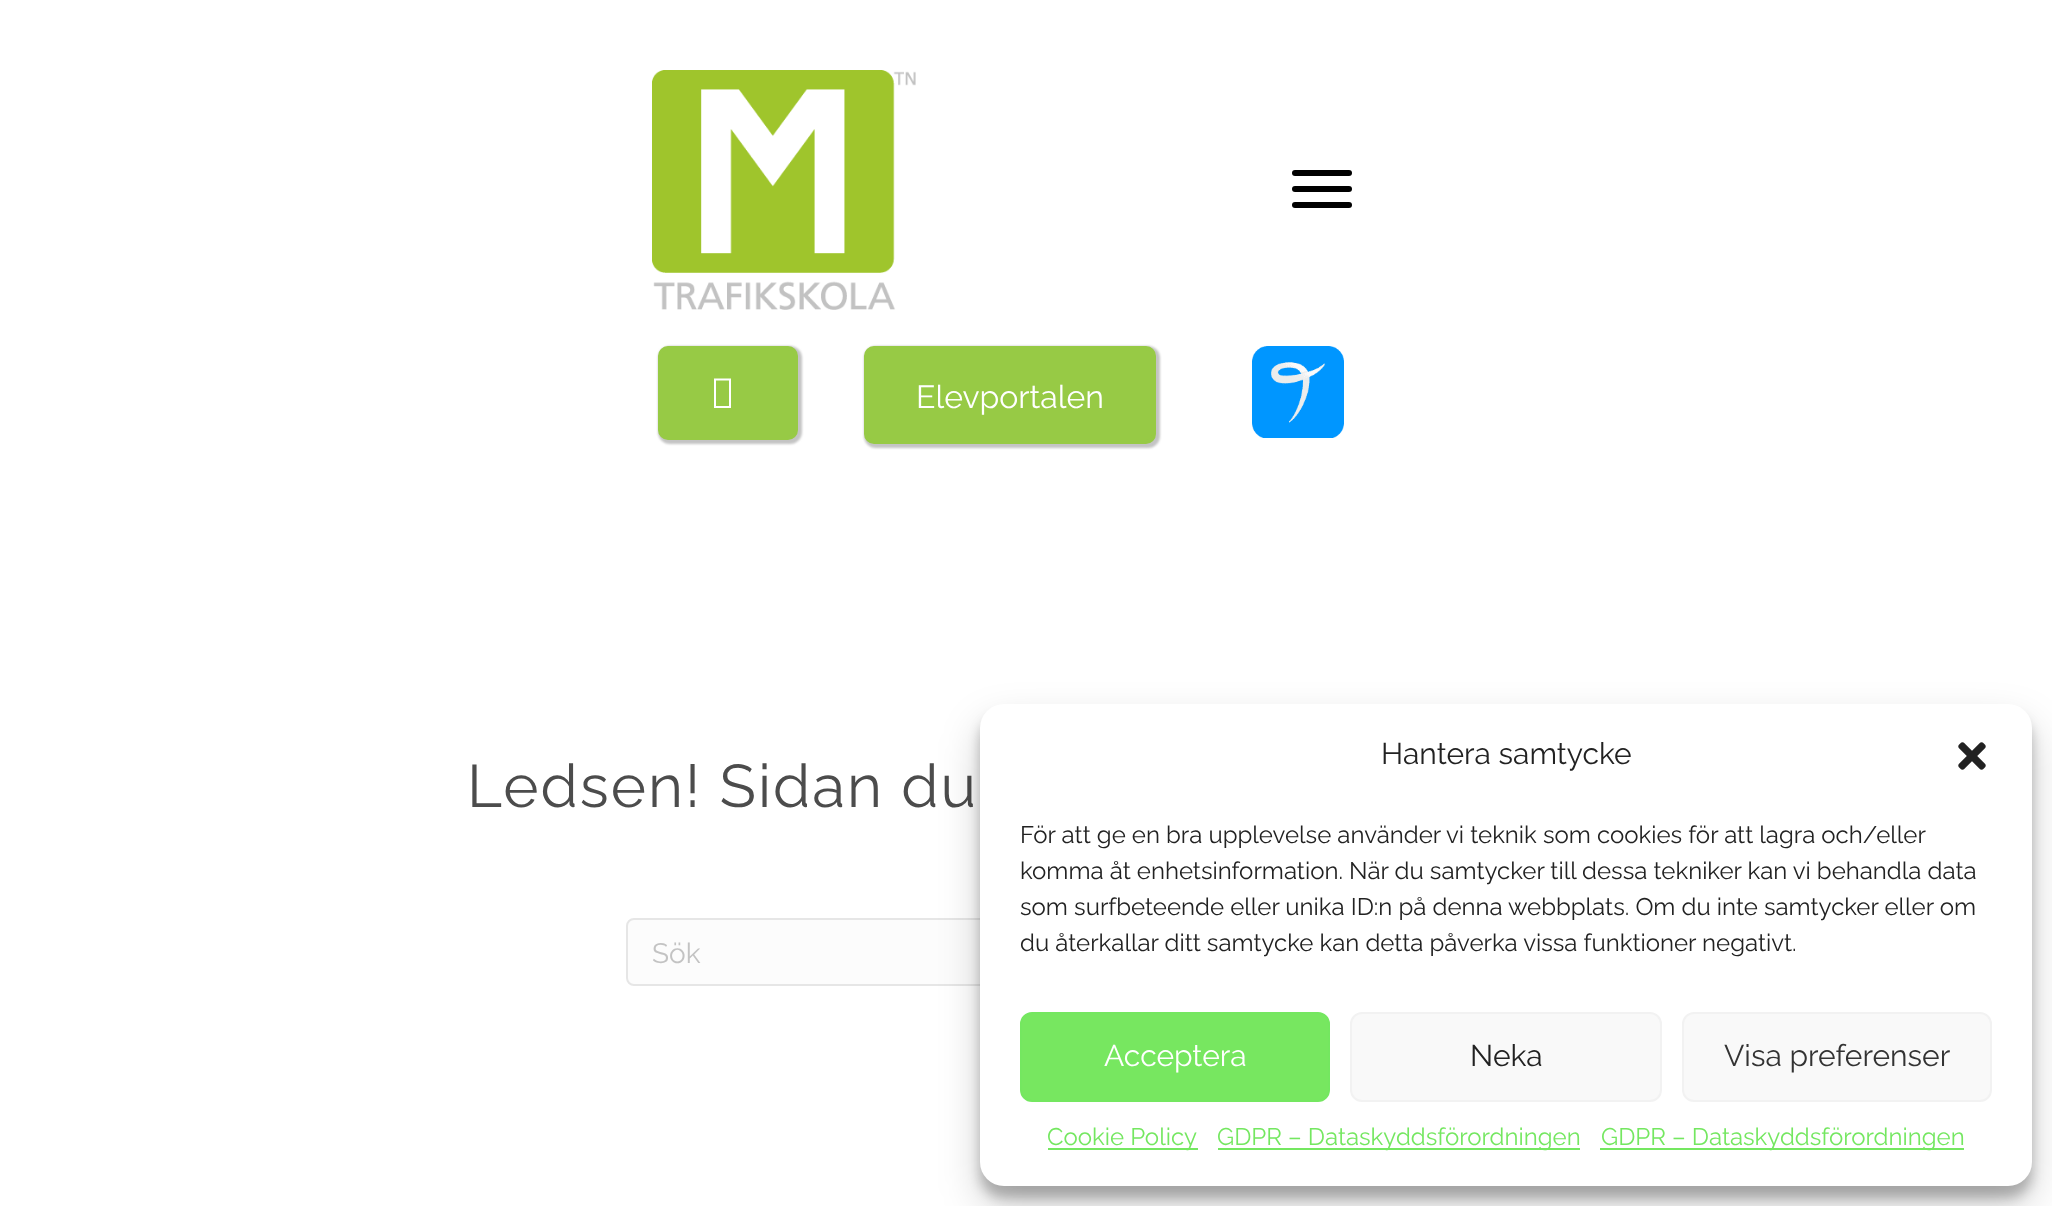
(async () => {
    const canvas = document.querySelector("canvas");
    canvas.width = 2052;
    canvas.height = 1206;
    const context = canvas.getContext("2d");
    context.miterLimit = 4;
    context.fontKerning = "normal";
    function write(s, x, y, font, color) {
        context.font = font;
        context.fillStyle = color;
        context.fillText(s, x, y);
    }
    function block(x, y, w, h, color) {
        context.fillStyle = color;
        context.fillRect(x, y, w, h);
    }
    function card(x, y, w, h, r, color) {
        context.fillStyle = color;
        context.beginPath();
        context.roundRect(x, y, w, h, r);
        context.fill();
    }
    async function photo(src, x, y, w, h) {
        const img = new Image();
        img.src = src;
        await img.decode();
        context.drawImage(img, x, y, w, h);
    }

    block(0, 0, 2052, 1206, "rgb(255, 255, 255)");
    await photo("media/1.png", 652, 70, 264, 240);
    card(1292, 186, 60, 6, 3, "rgb(0, 0, 0)");
    card(1292, 170, 60, 6, 3, "rgb(0, 0, 0)");
    card(1292, 202, 60, 6, 3, "rgb(0, 0, 0)");
    context.fillStyle = "rgb(196, 196, 196)";
    context.filter = "blur(1px)";
    context.beginPath();
    context.roundRect(658, 346, 144, 98, 12);
    context.fill();
    context.filter = "none";
    context.fillStyle = "rgb(151, 202, 69)";
    context.beginPath();
    context.roundRect(660, 348, 136, 90, 8);
    context.fill();
    context.strokeStyle = "rgb(151, 202, 69)";
    context.lineWidth = 4;
    context.stroke();
    context.fillStyle = "rgb(255, 255, 255)";
    context.beginPath();
    context.moveTo(714, 408);
    context.lineTo(714, 378.5);
    context.lineTo(731, 378.5);
    context.lineTo(731, 408);
    context.closePath();
    context.moveTo(716, 406);
    context.lineTo(729, 406);
    context.lineTo(729, 380.5);
    context.lineTo(716, 380.5);
    context.closePath();
    context.fill();
    context.fillStyle = "rgb(196, 196, 196)";
    context.filter = "blur(1px)";
    context.beginPath();
    context.roundRect(864, 346, 296, 102, 12);
    context.fill();
    context.filter = "none";
    context.fillStyle = "rgb(151, 202, 69)";
    context.beginPath();
    context.roundRect(866, 348, 288, 94, 8);
    context.fill();
    context.stroke();
    write("Elevportalen", 916, 408, "32px Raleway", "rgb(255, 255, 255)");
    await photo("media/2.png", 1252, 346, 92, 92);
    context.letterSpacing = "2px";
    write("Ledsen! Sidan du", 467, 807, "60px Raleway", "rgb(76, 76, 76)");
    context.fillStyle = "rgb(252, 252, 252)";
    context.beginPath();
    context.roundRect(627, 919, 798, 66, 7);
    context.fill();
    context.strokeStyle = "rgb(230, 230, 230)";
    context.lineWidth = 2;
    context.stroke();
    context.letterSpacing = "0px";
    write("Sök", 652, 963, "28px Raleway", "rgb(195, 195, 195)");
    context.fillStyle = "rgba(0, 0, 0, 0.23)";
    context.filter = "blur(6px)";
    context.beginPath();
    context.roundRect(980, 716, 1052, 482, 24);
    context.fill();
    context.filter = "none";
    context.fillStyle = "rgba(0, 0, 0, 0.19)";
    context.filter = "blur(20px)";
    context.beginPath();
    context.roundRect(980, 724, 1052, 482, 24);
    context.fill();
    context.filter = "none";
    card(980, 704, 1052, 482, 24, "rgb(255, 255, 255)");
    write("Hantera samtycke", 1381, 764, "30px Raleway", "rgb(34, 34, 34)");
    await photo("media/3.png", 1958, 742, 28, 28);
    write("För att ge en bra upplevelse använder vi teknik som cookies för att lagra och/eller", 1020, 843, "24px Raleway", "rgb(34, 34, 34)");
    write("komma åt enhetsinformation. När du samtycker till dessa tekniker kan vi behandla data", 1020, 879, "24px Raleway", "rgb(34, 34, 34)");
    write("som surfbeteende eller unika ID:n på denna webbplats. Om du inte samtycker eller om", 1020, 915, "24px Raleway", "rgb(34, 34, 34)");
    write("du återkallar ditt samtycke kan detta påverka vissa funktioner negativt.", 1020, 951, "24px Raleway", "rgb(34, 34, 34)");
    context.fillStyle = "rgb(119, 231, 96)";
    context.beginPath();
    context.roundRect(1021, 1013, 308, 88, 11);
    context.fill();
    context.strokeStyle = "rgb(116, 231, 96)";
    context.stroke();
    write("Acceptera", 1104, 1066, "30px Raleway", "rgb(255, 255, 255)");
    context.fillStyle = "rgb(249, 249, 249)";
    context.beginPath();
    context.roundRect(1351, 1013, 310, 88, 11);
    context.fill();
    context.strokeStyle = "rgb(242, 242, 242)";
    context.stroke();
    write("Neka", 1470, 1066, "30px Raleway", "rgb(34, 34, 34)");
    context.fillStyle = "rgb(249, 249, 249)";
    context.beginPath();
    context.roundRect(1683, 1013, 308, 88, 11);
    context.fill();
    context.stroke();
    write("Visa preferenser", 1724, 1066, "30px Raleway", "rgb(51, 51, 51)");
    block(1048, 1148, 150, 2, "rgb(116, 231, 96)");
    write("Cookie Policy", 1047, 1145, "24px Raleway", "rgb(116, 231, 96)");
    block(1218, 1148, 362, 2, "rgb(116, 231, 96)");
    write("GDPR – Dataskyddsförordningen", 1217, 1145, "24px Raleway", "rgb(116, 231, 96)");
    block(1600, 1148, 364, 2, "rgb(116, 231, 96)");
    write("GDPR – Dataskyddsförordningen", 1601, 1145, "24px Raleway", "rgb(116, 231, 96)");
})();
